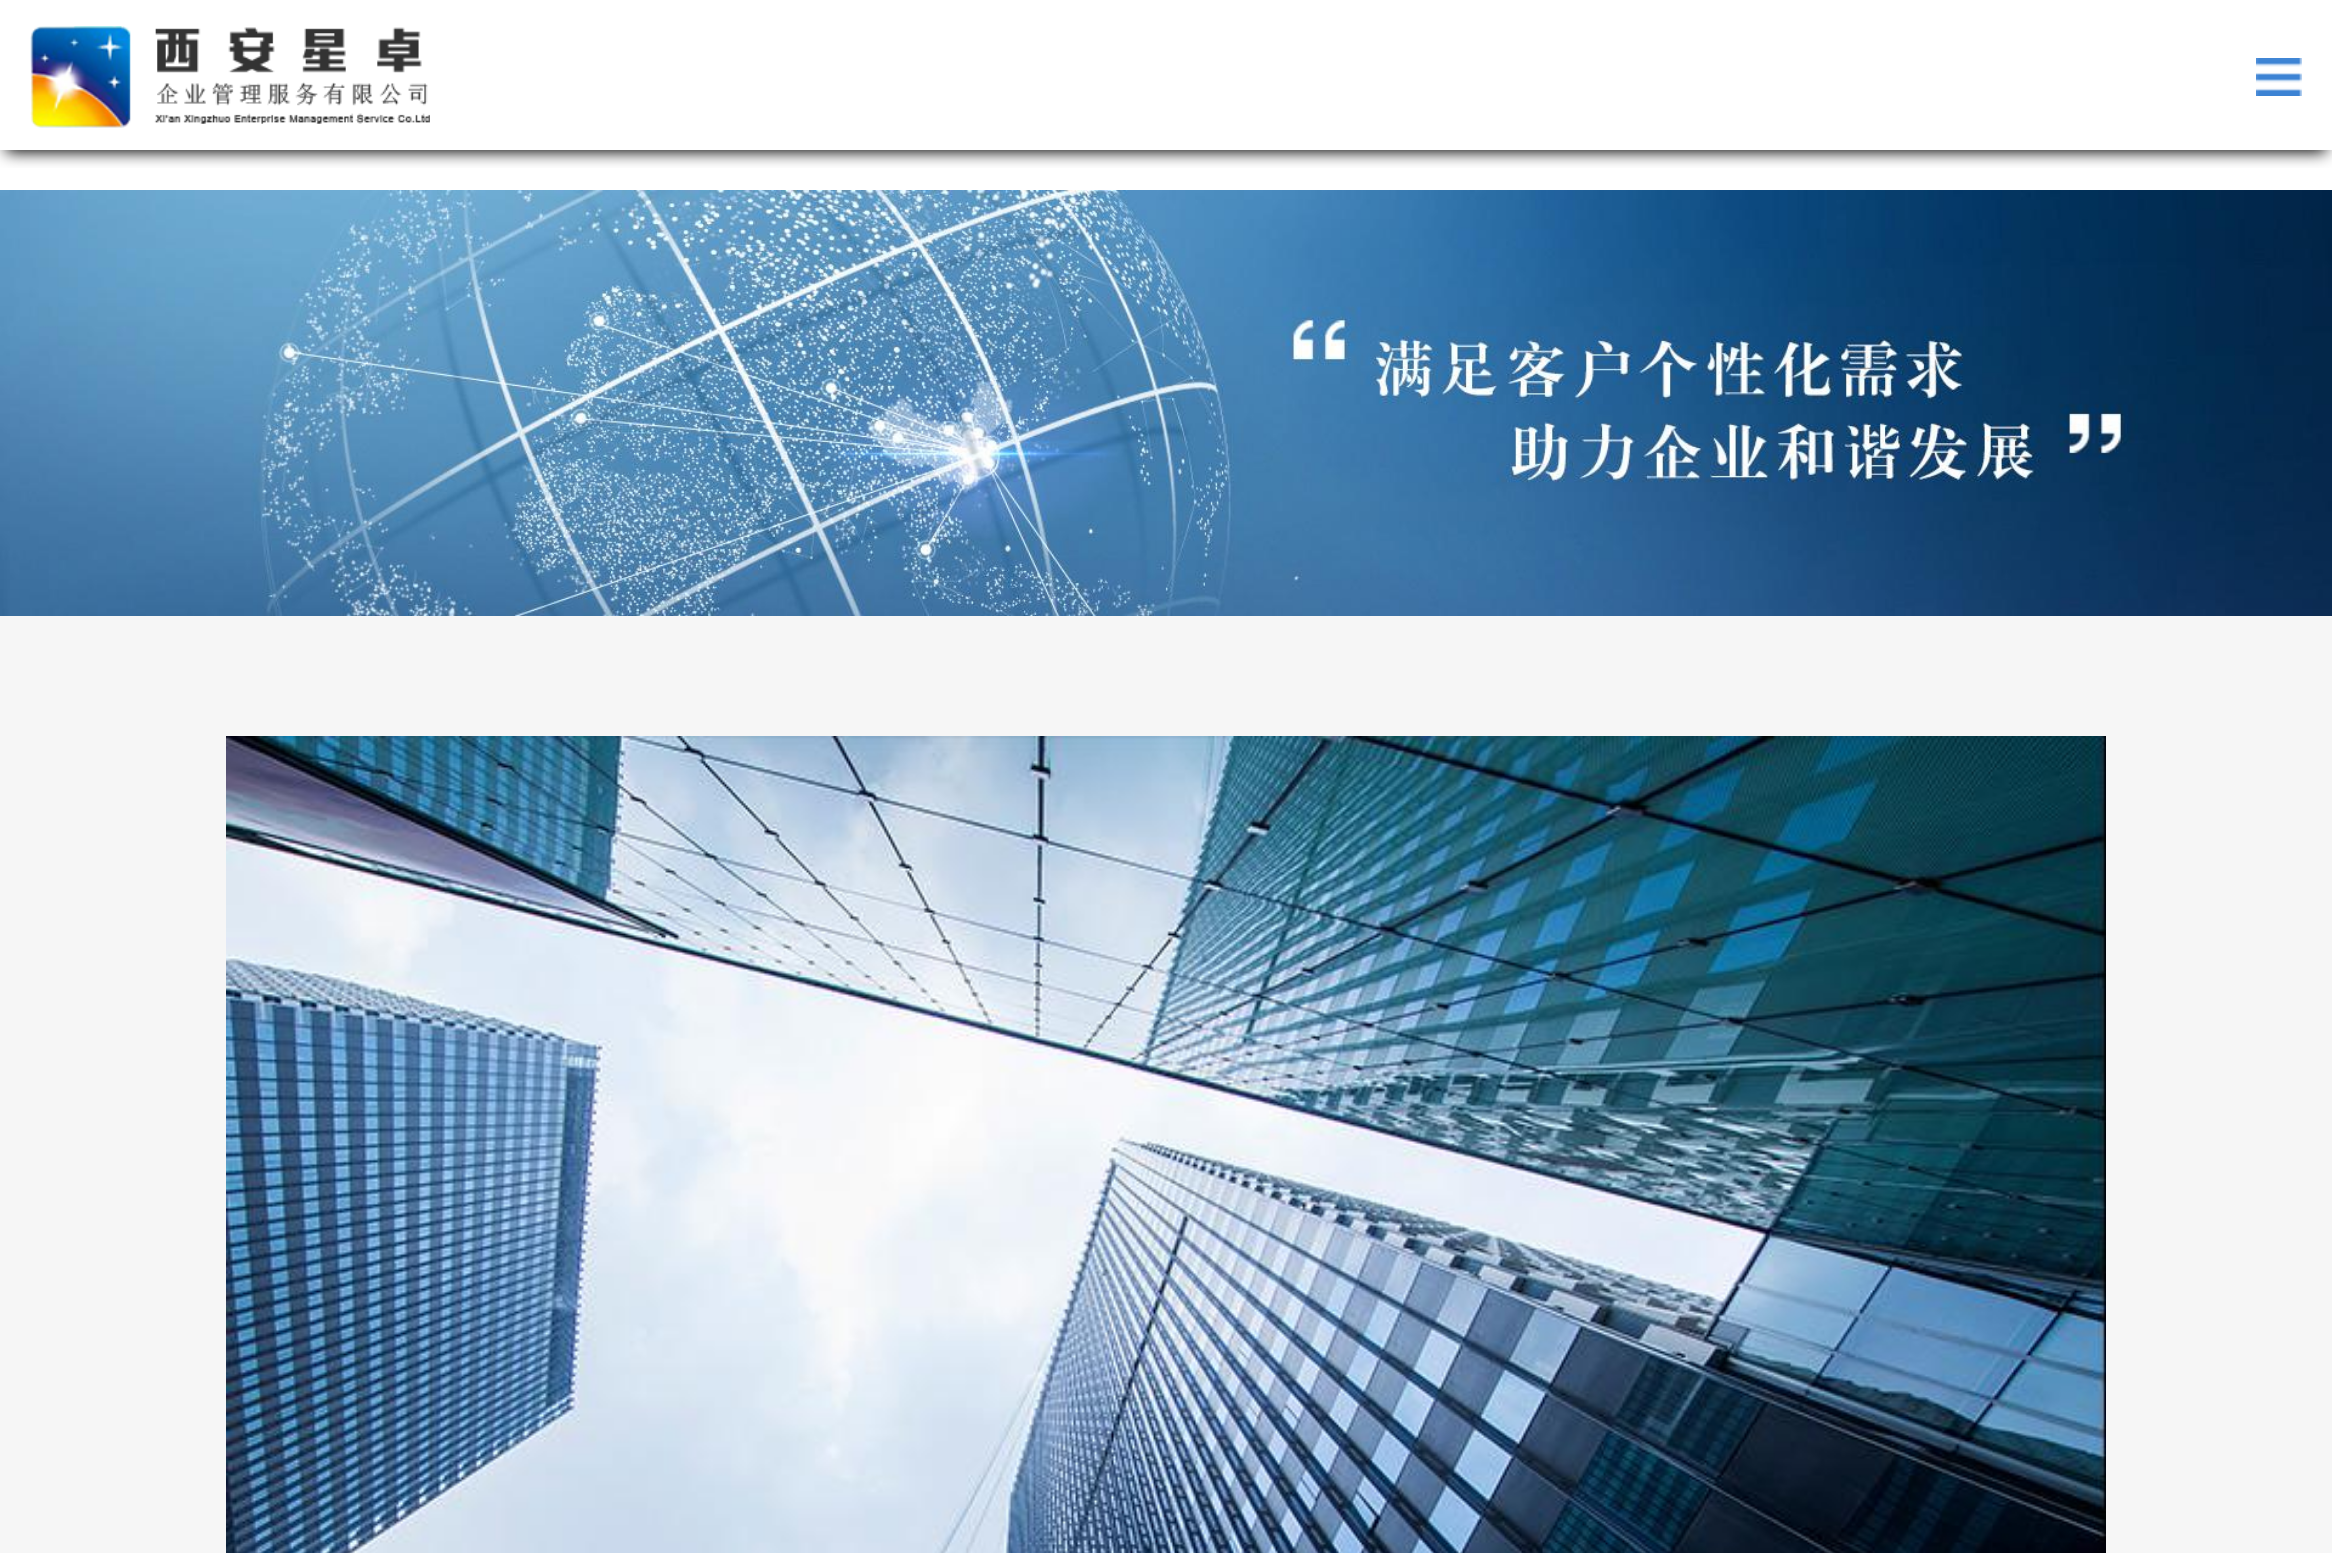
(async () => {
    const canvas = document.querySelector("canvas");
    canvas.width = 2332;
    canvas.height = 1553;
    const context = canvas.getContext("2d");
    context.miterLimit = 4;
    context.fontKerning = "normal";
    function block(x, y, w, h, color) {
        context.fillStyle = color;
        context.fillRect(x, y, w, h);
    }
    async function photo(src, x, y, w, h) {
        const img = new Image();
        img.src = src;
        await img.decode();
        context.drawImage(img, x, y, w, h);
    }

    block(0, 0, 2332, 1553, "rgb(255, 255, 255)");
    context.save();
    context.beginPath();
    context.rect(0, 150, 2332, 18);
    context.clip();
    context.fillStyle = "rgb(0, 0, 0)";
    context.filter = "blur(8px)";
    context.beginPath();
    context.rect(6, 14, 2320, 138);
    context.fill();
    context.filter = "none";
    context.restore();
    await photo("media/1.png", 30, 26, 400, 102);
    await photo("media/2.png", 2256, 58, 46, 38);
    await photo("media/3.png", 0, 190, 2332, 426);
    block(0, 616, 2332, 937, "rgb(246, 246, 246)");
    await photo("media/4.png", 226, 736, 1880, 817);
})();
